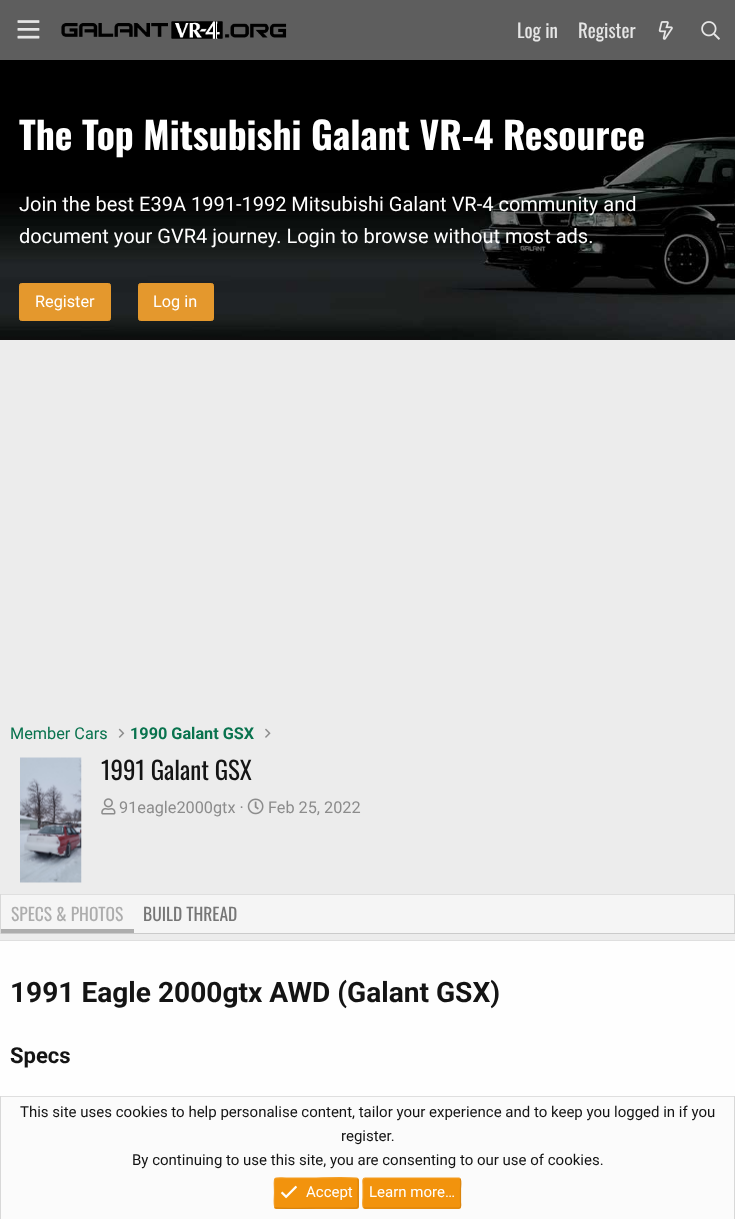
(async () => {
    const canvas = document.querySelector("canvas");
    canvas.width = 735;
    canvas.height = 1219;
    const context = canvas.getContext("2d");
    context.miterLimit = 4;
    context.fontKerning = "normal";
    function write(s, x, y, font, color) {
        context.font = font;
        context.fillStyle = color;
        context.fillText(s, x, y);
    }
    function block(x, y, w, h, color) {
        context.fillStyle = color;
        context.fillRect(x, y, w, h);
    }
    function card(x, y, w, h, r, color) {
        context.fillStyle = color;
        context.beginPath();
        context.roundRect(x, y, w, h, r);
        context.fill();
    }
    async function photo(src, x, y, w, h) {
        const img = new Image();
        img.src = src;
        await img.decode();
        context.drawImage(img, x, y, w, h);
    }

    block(0, 0, 735, 1219, "rgb(236, 236, 236)");
    block(0, 0, 735, 60, "rgb(94, 94, 94)");
    await photo("media/1.png", 17, 20, 23, 19);
    await photo("media/2.png", 61, 21, 226, 18);
    write("Log in", 517, 38, "19px Oswald", "rgb(230, 230, 230)");
    write("Register", 578, 38, "19px Oswald", "rgb(230, 230, 230)");
    await photo("media/3.png", 658, 21, 15, 19);
    await photo("media/4.png", 701, 21, 19, 19);
    await photo("media/5.png", 0, 60, 735, 280);
    write("The Top Mitsubishi Galant VR-4 Resource", 19, 150, "bold 37.5px Oswald", "rgb(255, 255, 255)");
    write("Join the best E39A 1991-1992 Mitsubishi Galant VR-4 community and", 19, 211, "20px Roboto", "rgb(255, 255, 255)");
    write("document your GVR4 journey. Login to browse without most ads.", 19, 243, "20px Roboto", "rgb(255, 255, 255)");
    context.fillStyle = "rgb(228, 152, 45)";
    context.beginPath();
    context.roundRect(19.5, 283.5, 91, 37, 2);
    context.fill();
    context.strokeStyle = "rgb(228, 152, 45)";
    context.stroke();
    write("Register", 35, 307, "16.25px Roboto", "rgb(255, 255, 255)");
    context.fillStyle = "rgb(228, 152, 45)";
    context.beginPath();
    context.roundRect(138.5, 283.5, 75, 37, 2);
    context.fill();
    context.stroke();
    write("Log in", 153, 307, "16.25px Roboto", "rgb(255, 255, 255)");
    write("Member Cars", 10, 739, "16.25px Roboto", "rgb(9, 115, 78)");
    await photo("media/6.png", 118, 728, 7, 10);
    write("1990 Galant GSX", 130, 739, "bold 16.25px Roboto", "rgb(9, 115, 78)");
    await photo("media/7.png", 265, 728, 6, 10);
    await photo("media/8.png", 20, 757, 62, 126);
    write("1991 Galant GSX", 101, 780, "25px Oswald", "rgb(20, 20, 20)");
    await photo("media/9.png", 101, 798, 15, 17);
    write("91eagle2000gtx ·", 119, 813, "16.25px Roboto", "rgb(140, 140, 140)");
    await photo("media/10.png", 247, 798, 17, 17);
    write("Feb 25, 2022", 268, 813, "16.25px Roboto", "rgb(140, 140, 140)");
    block(1, 895, 733, 38, "rgb(245, 245, 245)");
    block(0, 894, 735, 1, "rgb(223, 223, 223)");
    block(734, 894, 1, 40, "rgb(216, 216, 216)");
    block(0, 933, 735, 1, "rgb(203, 203, 203)");
    block(0, 894, 1, 40, "rgb(216, 216, 216)");
    block(1, 929, 133, 4, "rgb(173, 173, 173)");
    write("SPECS & PHOTOS", 11, 921, "17.5px Oswald", "rgb(173, 173, 173)");
    write("BUILD THREAD", 143, 921, "17.5px Oswald", "rgb(118, 118, 118)");
    block(0, 941, 735, 155, "rgb(254, 254, 254)");
    block(0, 940, 735, 1, "rgb(223, 223, 223)");
    write("1991 Eagle 2000gtx AWD (Galant GSX)", 10, 1002, "bold 28.1px Roboto", "rgb(20, 20, 20)");
    write("Specs", 10, 1063, "bold 22px Roboto", "rgb(20, 20, 20)");
    block(1, 1097, 733, 122, "rgb(251, 251, 251)");
    block(0, 1096, 735, 1, "rgb(223, 223, 223)");
    block(734, 1096, 1, 123, "rgb(216, 216, 216)");
    block(0, 1096, 1, 123, "rgb(216, 216, 216)");
    write("This site uses cookies to help personalise content, tailor your experience and to keep you logged in if you", 20, 1117, "15px Roboto", "rgb(20, 20, 20)");
    write("register.", 341, 1141, "15px Roboto", "rgb(20, 20, 20)");
    write("By continuing to use this site, you are consenting to our use of cookies.", 132, 1165, "15px Roboto", "rgb(20, 20, 20)");
    card(274, 1178, 85, 31, 2.5, "rgb(242, 147, 13)");
    context.beginPath();
    context.moveTo(357.5, 1178.5);
    context.bezierCurveTo(359, 1180, 358, 1191, 358, 1193);
    context.bezierCurveTo(358, 1211.5, 361.5, 1208, 343, 1208);
    context.lineTo(316, 1208);
    context.bezierCurveTo(311.5, 1208, 276.5, 1209, 275, 1207.5);
    context.strokeStyle = "rgb(218, 132, 12)";
    context.lineWidth = 1.2;
    context.stroke();
    context.beginPath();
    context.moveTo(275, 1207.5);
    context.bezierCurveTo(273.5, 1206, 274.5, 1195.5, 274.5, 1193);
    context.bezierCurveTo(274.5, 1174.5, 271, 1178, 289.5, 1178);
    context.lineTo(316, 1178);
    context.bezierCurveTo(321, 1178, 356, 1177, 357.5, 1178.5);
    context.strokeStyle = "rgb(243, 158, 37)";
    context.stroke();
    await photo("media/11.png", 281, 1185, 16, 14);
    write("Accept", 306, 1197, "15px Roboto", "rgb(255, 255, 255)");
    card(363, 1178, 98, 31, 2.5, "rgb(242, 147, 13)");
    context.beginPath();
    context.moveTo(460, 1178.5);
    context.bezierCurveTo(461.5, 1180.5, 460.5, 1187, 460.5, 1189);
    context.lineTo(460.5, 1202);
    context.bezierCurveTo(460.5, 1203, 461.5, 1208, 459, 1208);
    context.lineTo(365, 1208);
    context.lineTo(363.5, 1207.5);
    context.strokeStyle = "rgb(218, 132, 12)";
    context.stroke();
    context.beginPath();
    context.moveTo(363.5, 1207.5);
    context.bezierCurveTo(362, 1206, 363, 1199.5, 363, 1197.5);
    context.lineTo(363, 1184.5);
    context.bezierCurveTo(363, 1183, 362, 1178, 365, 1178);
    context.lineTo(459, 1178);
    context.lineTo(460, 1178.5);
    context.strokeStyle = "rgb(243, 158, 37)";
    context.stroke();
    write("Learn more…", 369, 1197, "15px Roboto", "rgb(255, 255, 255)");
})();
